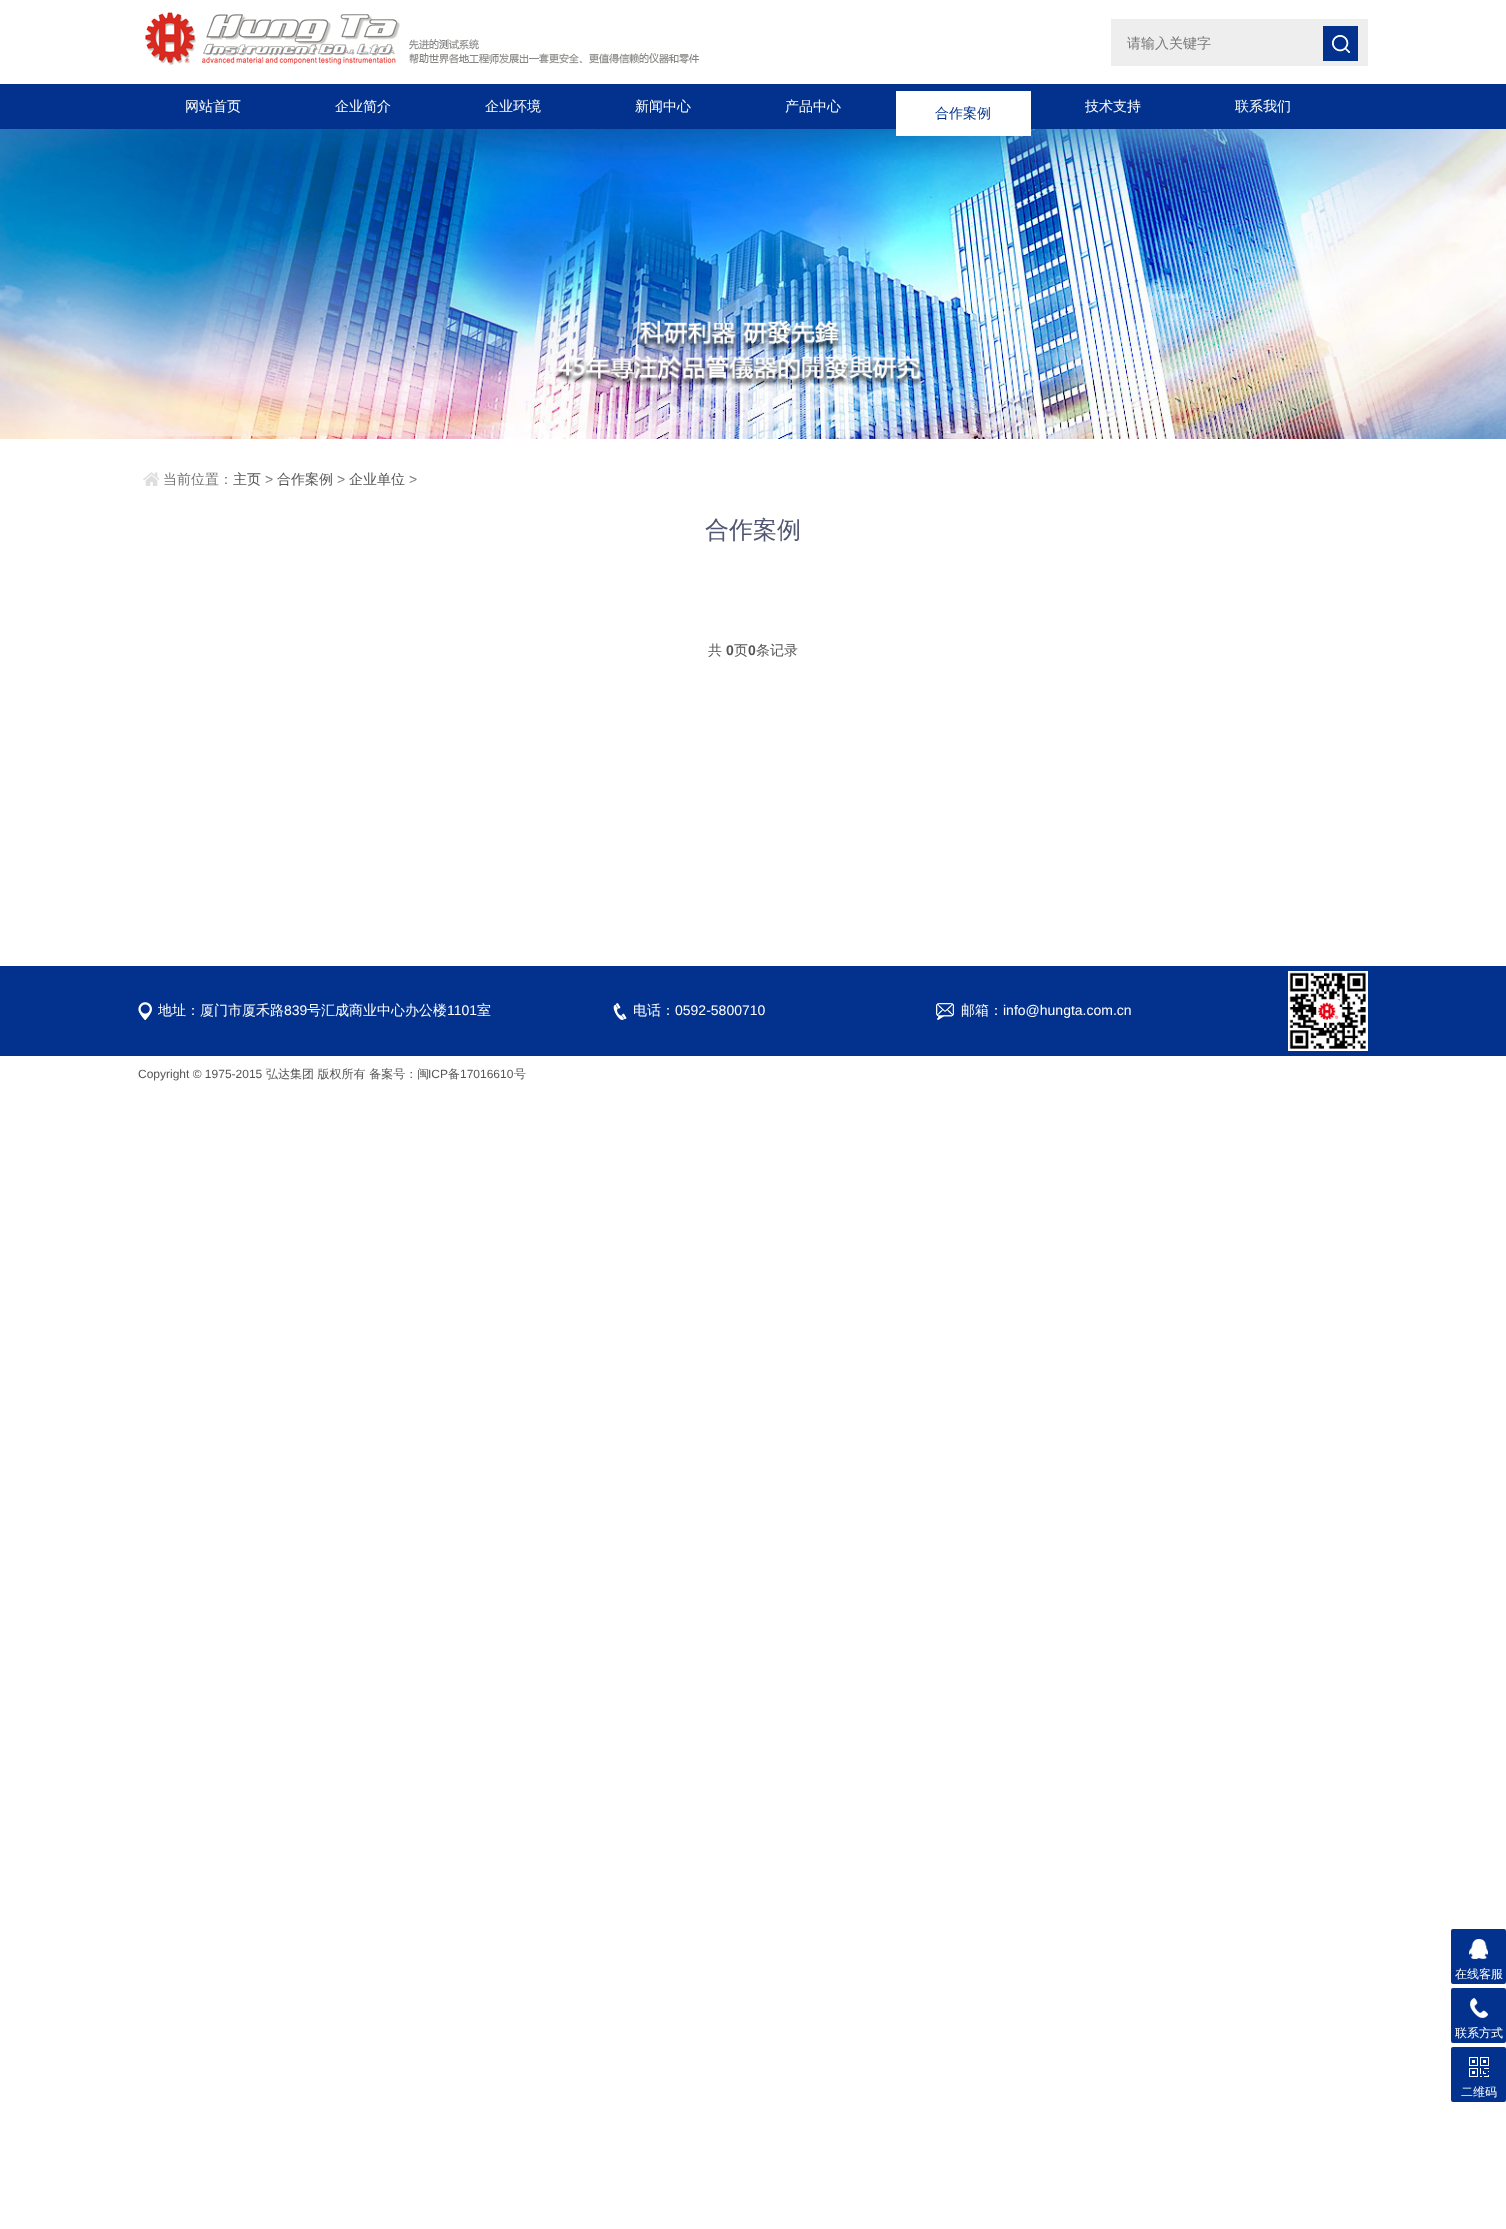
(async () => {
    const canvas = document.querySelector("canvas");
    canvas.width = 1506;
    canvas.height = 2229;
    const context = canvas.getContext("2d");
    context.miterLimit = 4;
    context.fontKerning = "normal";
    function write(s, x, y, font, color) {
        context.font = font;
        context.fillStyle = color;
        context.fillText(s, x, y);
    }
    function block(x, y, w, h, color) {
        context.fillStyle = color;
        context.fillRect(x, y, w, h);
    }
    function card(x, y, w, h, r, color) {
        context.fillStyle = color;
        context.beginPath();
        context.roundRect(x, y, w, h, r);
        context.fill();
    }
    async function photo(src, x, y, w, h) {
        const img = new Image();
        img.src = src;
        await img.decode();
        context.drawImage(img, x, y, w, h);
    }

    block(0, 0, 1506, 2229, "rgb(255, 255, 255)");
    await photo("media/1.png", 145, 12, 554, 53);
    block(1111, 19, 257, 47, "rgb(238, 238, 238)");
    write("请输入关键字", 1127, 48, "500 14px WenQuanYi Zen Hei", "rgb(119, 119, 119)");
    block(1323, 26, 35, 35, "rgb(2, 50, 141)");
    await photo("media/2.png", 1332, 35, 18, 18);
    block(0, 84, 1506, 45, "rgb(2, 50, 141)");
    write("网站首页", 185, 111, "500 14px WenQuanYi Zen Hei", "rgb(255, 255, 255)");
    write("企业简介", 335, 111, "500 14px WenQuanYi Zen Hei", "rgb(255, 255, 255)");
    write("企业环境", 485, 111, "500 14px WenQuanYi Zen Hei", "rgb(255, 255, 255)");
    write("新闻中心", 635, 111, "500 14px WenQuanYi Zen Hei", "rgb(255, 255, 255)");
    write("产品中心", 785, 111, "500 14px WenQuanYi Zen Hei", "rgb(255, 255, 255)");
    await photo("media/3.png", 0, 129, 1506, 310);
    block(896, 91, 135, 45, "rgb(255, 255, 255)");
    write("合作案例", 935, 118, "500 14px WenQuanYi Zen Hei", "rgb(2, 50, 141)");
    write("技术支持", 1085, 111, "500 14px WenQuanYi Zen Hei", "rgb(255, 255, 255)");
    write("联系我们", 1235, 111, "500 14px WenQuanYi Zen Hei", "rgb(255, 255, 255)");
    await photo("media/4.png", 143, 472, 16, 14);
    write("当前位置：", 163, 484, "500 14px WenQuanYi Zen Hei", "rgb(119, 119, 119)");
    write("主页", 233, 484, "500 14px WenQuanYi Zen Hei", "rgb(85, 85, 85)");
    write(">", 265, 484, "14px Liberation Sans", "rgb(119, 119, 119)");
    write("合作案例", 277, 484, "500 14px WenQuanYi Zen Hei", "rgb(85, 85, 85)");
    write(">", 337, 484, "14px Liberation Sans", "rgb(119, 119, 119)");
    write("企业单位", 349, 484, "500 14px WenQuanYi Zen Hei", "rgb(85, 85, 85)");
    write(">", 409, 484, "14px Liberation Sans", "rgb(119, 119, 119)");
    write("合作案例", 705, 538, "500 24px WenQuanYi Zen Hei", "rgb(81, 86, 113)");
    write("共", 708, 655, "500 14px WenQuanYi Zen Hei", "rgb(85, 85, 85)");
    write("0", 726, 655, "bold 14px Liberation Sans", "rgb(85, 85, 85)");
    write("页", 734, 655, "500 14px WenQuanYi Zen Hei", "rgb(85, 85, 85)");
    write("0", 748, 655, "bold 14px Liberation Sans", "rgb(85, 85, 85)");
    write("条记录", 756, 655, "500 14px WenQuanYi Zen Hei", "rgb(85, 85, 85)");
    block(0, 966, 1506, 90, "rgb(2, 50, 141)");
    await photo("media/5.png", 138, 1002, 14, 18);
    write("地址：厦门市厦禾路", 158, 1015, "500 14px WenQuanYi Zen Hei", "rgb(255, 255, 255)");
    write("839", 284, 1015, "14px Liberation Sans", "rgb(255, 255, 255)");
    write("号汇成商业中心办公楼", 307, 1015, "500 14px WenQuanYi Zen Hei", "rgb(255, 255, 255)");
    write("1101", 447, 1015, "14px Liberation Sans", "rgb(255, 255, 255)");
    write("室", 477, 1015, "500 14px WenQuanYi Zen Hei", "rgb(255, 255, 255)");
    await photo("media/6.png", 613, 1003, 14, 17);
    write("电话：", 633, 1015, "500 14px WenQuanYi Zen Hei", "rgb(255, 255, 255)");
    write("0592-5800710", 675, 1015, "14px Liberation Sans", "rgb(255, 255, 255)");
    await photo("media/7.png", 936, 1003, 18, 17);
    write("邮箱：", 961, 1015, "500 14px WenQuanYi Zen Hei", "rgb(255, 255, 255)");
    write("info@hungta.com.cn", 1003, 1015, "14px Liberation Sans", "rgb(255, 255, 255)");
    await photo("media/8.png", 1288, 971, 80, 80);
    write("Copyright © 1975-2015", 138, 1078, "12px Liberation Sans", "rgb(85, 85, 85)");
    write("弘达集团 版权所有 备案号：闽", 266, 1078, "500 12px WenQuanYi Zen Hei", "rgb(85, 85, 85)");
    write("ICP", 428, 1078, "12px Liberation Sans", "rgb(85, 85, 85)");
    write("备", 448, 1078, "500 12px WenQuanYi Zen Hei", "rgb(85, 85, 85)");
    write("17016610", 460, 1078, "12px Liberation Sans", "rgb(85, 85, 85)");
    write("号", 514, 1078, "500 12px WenQuanYi Zen Hei", "rgb(85, 85, 85)");
    card(1451, 1929, 55, 55, 2, "rgb(2, 50, 141)");
    await photo("media/9.png", 1469, 1939, 19, 20);
    write("在线客服", 1455, 1978, "500 12px WenQuanYi Zen Hei", "rgb(255, 255, 255)");
    card(1451, 1988, 55, 55, 2, "rgb(2, 50, 141)");
    await photo("media/10.png", 1470, 1998, 18, 20);
    write("联系方式", 1455, 2037, "500 12px WenQuanYi Zen Hei", "rgb(255, 255, 255)");
    card(1451, 2047, 55, 55, 2, "rgb(2, 50, 141)");
    await photo("media/11.png", 1469, 2057, 20, 20);
    write("二维码", 1461, 2096, "500 12px WenQuanYi Zen Hei", "rgb(255, 255, 255)");
})();
